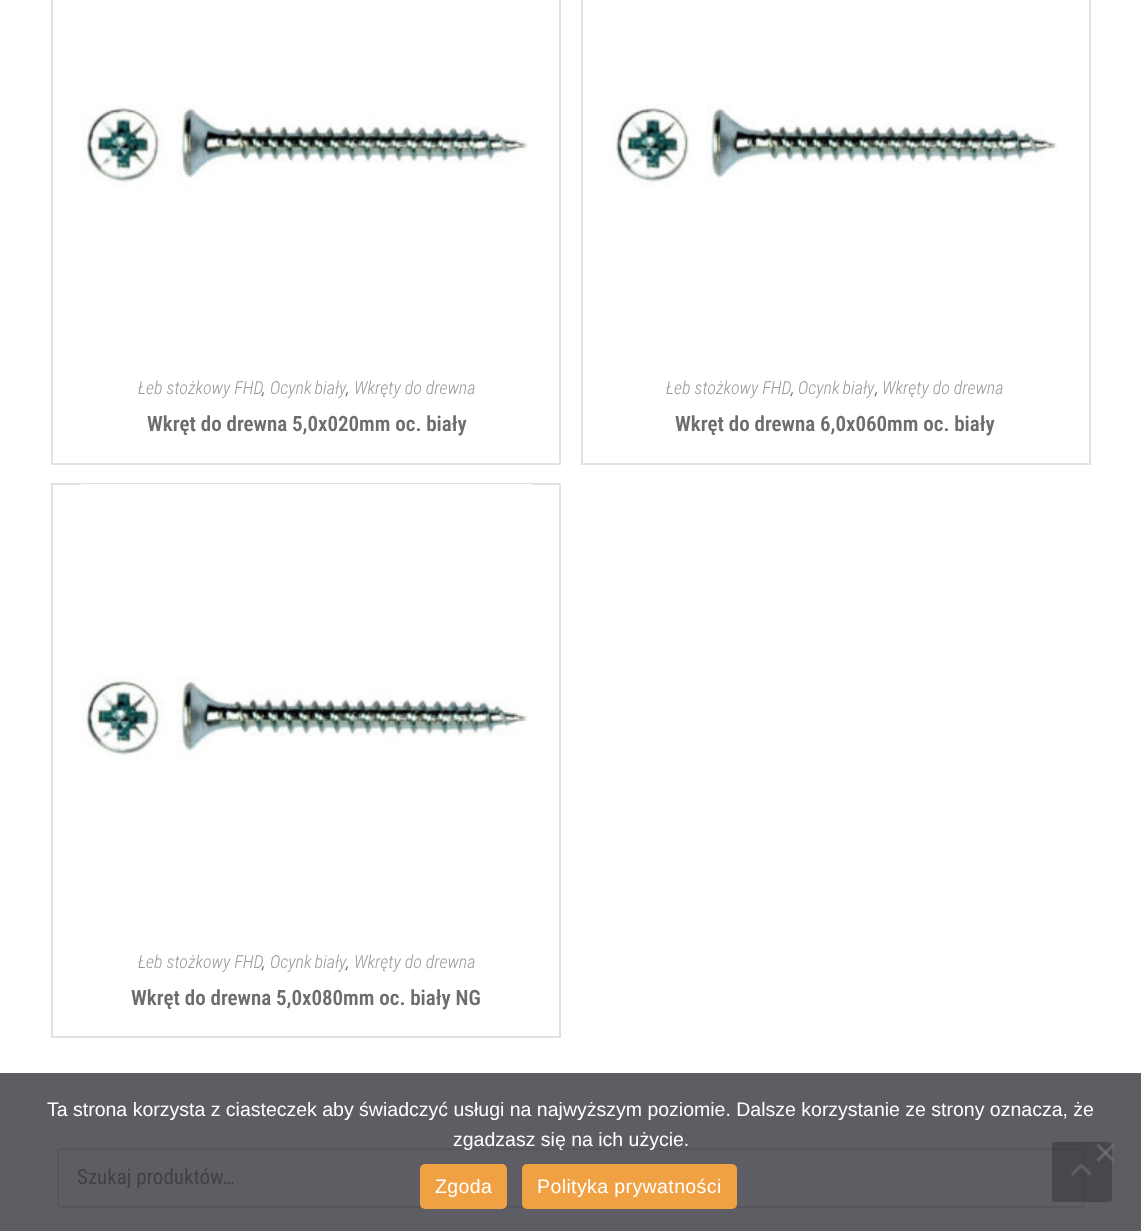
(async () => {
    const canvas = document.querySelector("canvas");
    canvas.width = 1141;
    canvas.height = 1231;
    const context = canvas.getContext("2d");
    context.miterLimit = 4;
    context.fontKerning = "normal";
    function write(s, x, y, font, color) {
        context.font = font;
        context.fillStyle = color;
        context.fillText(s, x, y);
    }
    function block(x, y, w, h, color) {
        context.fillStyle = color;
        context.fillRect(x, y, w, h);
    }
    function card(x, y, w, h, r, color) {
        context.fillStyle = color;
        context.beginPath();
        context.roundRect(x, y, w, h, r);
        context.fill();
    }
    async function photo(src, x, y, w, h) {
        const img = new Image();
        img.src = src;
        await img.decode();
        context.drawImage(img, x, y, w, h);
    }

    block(0, 0, 1141, 1231, "rgb(255, 255, 255)");
    block(0, 1073, 1141, 158, "rgb(93, 93, 99)");
    context.strokeStyle = "rgb(226, 226, 226)";
    context.lineWidth = 2;
    context.strokeRect(52, -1, 508, 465);
    await photo("media/1.png", 81, 103, 447, 84);
    write("Łeb stożkowy FHD", 138, 394, "italic 300 18px Roboto Condensed", "rgb(153, 153, 153)");
    write(",", 262, 394, "italic 300 18px Roboto Condensed", "rgb(79, 79, 79)");
    context.wordSpacing = "-1px";
    write("Ocynk biały", 270, 394, "italic 300 18px Roboto Condensed", "rgb(153, 153, 153)");
    context.wordSpacing = "0px";
    write("Wkręty do drewna", 354, 394, "italic 300 18px Roboto Condensed", "rgb(153, 153, 153)");
    write(",", 346, 394, "italic 300 18px Roboto Condensed", "rgb(79, 79, 79)");
    write("Wkręt do drewna 5,0x020mm oc. biały", 147, 431, "600 21px Roboto Condensed", "rgb(109, 109, 109)");
    context.strokeRect(582, -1, 508, 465);
    await photo("media/2.png", 612, 103, 445, 84);
    write("Łeb stożkowy FHD", 666, 394, "italic 300 18px Roboto Condensed", "rgb(153, 153, 153)");
    write(",", 791, 394, "italic 300 18px Roboto Condensed", "rgb(79, 79, 79)");
    context.wordSpacing = "-1px";
    write("Ocynk biały", 798, 394, "italic 300 18px Roboto Condensed", "rgb(153, 153, 153)");
    context.wordSpacing = "0px";
    write("Wkręty do drewna", 882, 394, "italic 300 18px Roboto Condensed", "rgb(153, 153, 153)");
    write(",", 875, 394, "italic 300 18px Roboto Condensed", "rgb(79, 79, 79)");
    write("Wkręt do drewna 6,0x060mm oc. biały", 675, 431, "600 21px Roboto Condensed", "rgb(109, 109, 109)");
    context.strokeRect(52, 484, 508, 553);
    await photo("media/3.png", 81, 484, 450, 276);
    write("Łeb stożkowy FHD", 138, 968, "italic 300 18px Roboto Condensed", "rgb(153, 153, 153)");
    write(",", 262, 968, "italic 300 18px Roboto Condensed", "rgb(79, 79, 79)");
    context.wordSpacing = "-1px";
    write("Ocynk biały", 270, 968, "italic 300 18px Roboto Condensed", "rgb(153, 153, 153)");
    context.wordSpacing = "0px";
    write("Wkręty do drewna", 354, 968, "italic 300 18px Roboto Condensed", "rgb(153, 153, 153)");
    write(",", 346, 968, "italic 300 18px Roboto Condensed", "rgb(79, 79, 79)");
    write("Wkręt do drewna 5,0x080mm oc. biały NG", 131, 1005, "600 21px Roboto Condensed", "rgb(109, 109, 109)");
    context.beginPath();
    context.roundRect(58, 1149, 1026, 58, 4);
    context.strokeStyle = "rgb(86, 86, 92)";
    context.stroke();
    context.save();
    context.beginPath();
    context.rect(77, 1164, 988, 24);
    context.clip();
    write("Szukaj produktów…", 77, 1184, "21px Roboto Condensed", "rgb(64, 64, 70)");
    context.restore();
    write("Ta strona korzysta z ciasteczek aby świadczyć usługi na najwyższym poziomie. Dalsze korzystanie ze strony oznacza, że", 47, 1116, "19.5px Liberation Sans", "rgb(255, 255, 255)");
    write("zgadzasz się na ich użycie.", 453, 1146, "19.5px Liberation Sans", "rgb(255, 255, 255)");
    card(1052, 1142, 60, 60, 3, "rgba(40, 40, 46, 0.4)");
    context.fillStyle = "rgba(128, 128, 128, 0.5)";
    context.beginPath();
    context.moveTo(1112.5, 1143.5);
    context.lineTo(1114.5, 1146);
    context.lineTo(1098.5, 1162);
    context.lineTo(1096.5, 1159.5);
    context.closePath();
    context.fill();
    context.beginPath();
    context.moveTo(1096.5, 1146);
    context.lineTo(1098.5, 1143.5);
    context.lineTo(1114.5, 1159.5);
    context.lineTo(1112.5, 1162);
    context.closePath();
    context.fill();
    card(420, 1164, 87, 45, 5, "rgb(240, 161, 67)");
    context.letterSpacing = "0.4px";
    write("Zgoda", 435, 1193, "19.5px Liberation Sans", "rgb(255, 255, 255)");
    card(522, 1164, 215, 45, 5, "rgb(240, 161, 67)");
    write("Polityka prywatności", 537, 1193, "19.5px Liberation Sans", "rgb(255, 255, 255)");
    await photo("media/4.png", 1071, 1163, 21, 13);
})();
